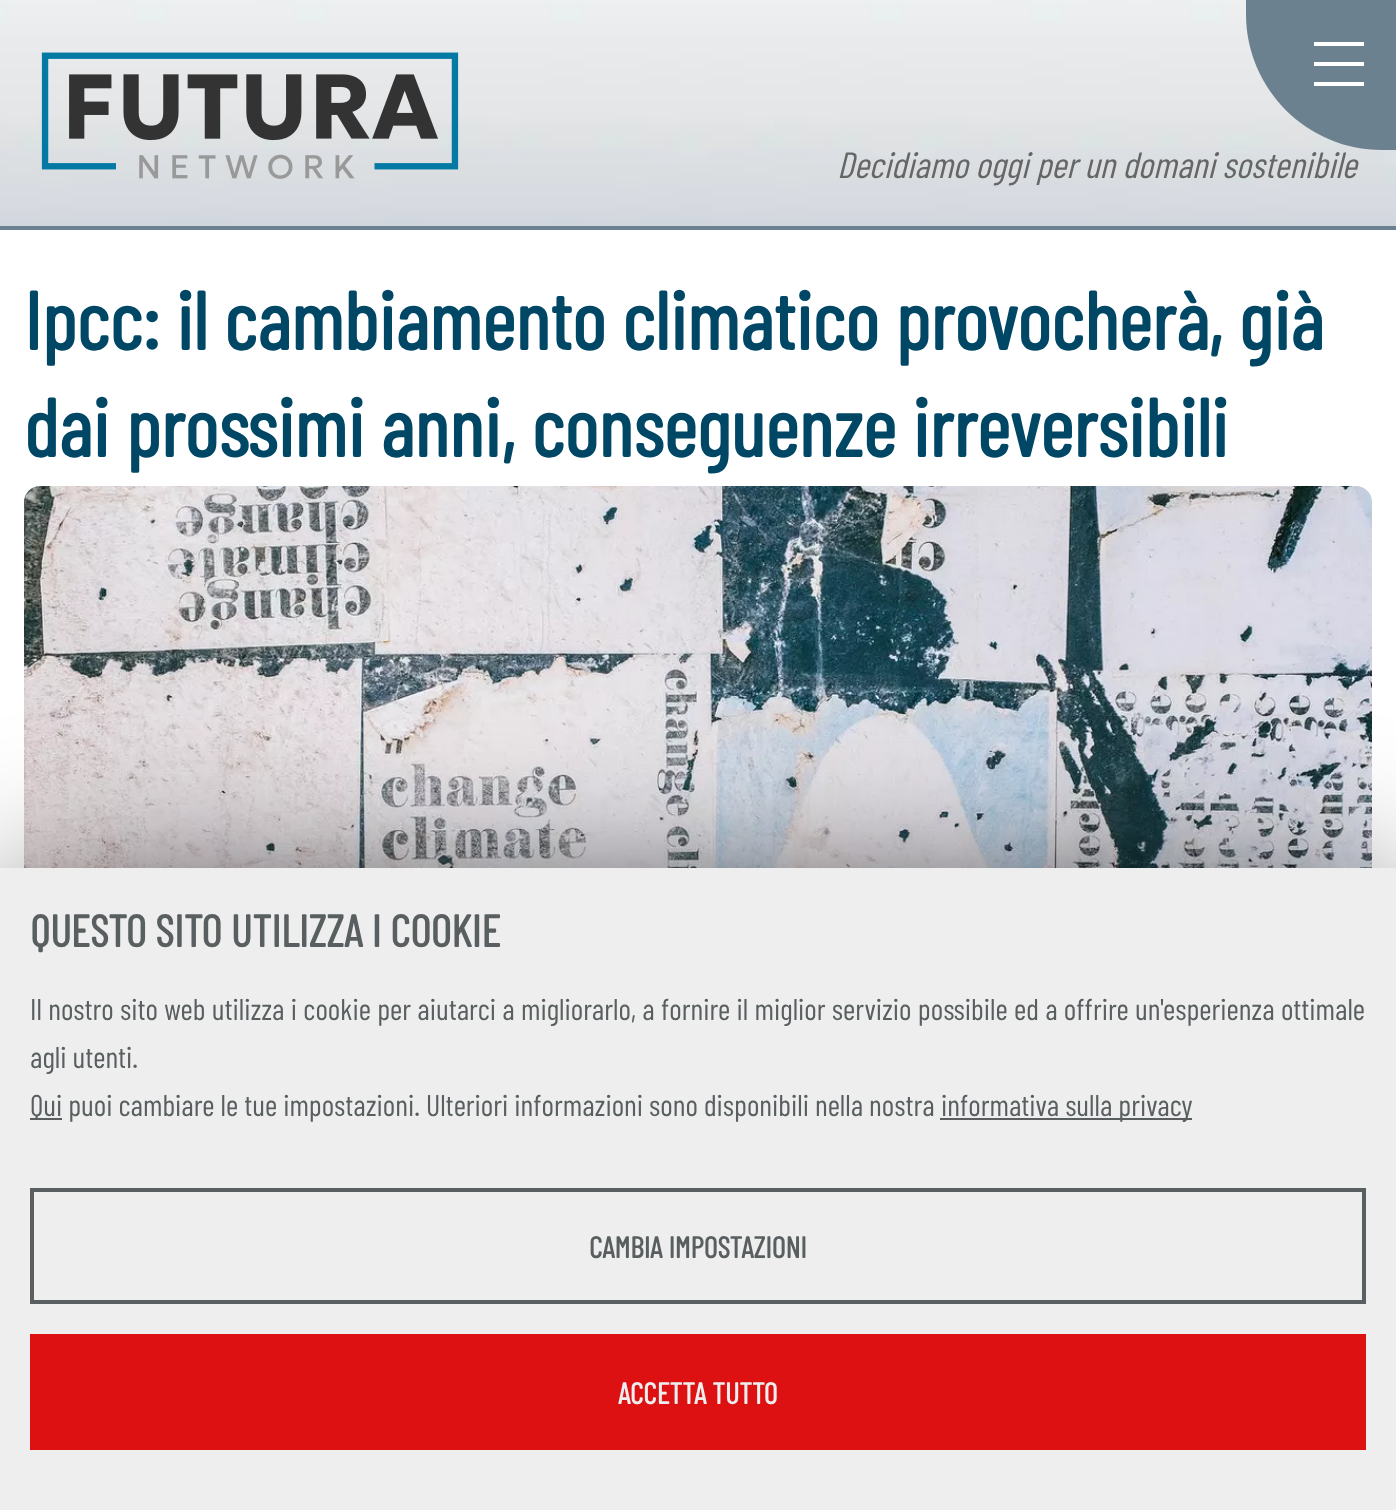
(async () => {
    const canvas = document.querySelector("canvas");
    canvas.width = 1396;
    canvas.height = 1510;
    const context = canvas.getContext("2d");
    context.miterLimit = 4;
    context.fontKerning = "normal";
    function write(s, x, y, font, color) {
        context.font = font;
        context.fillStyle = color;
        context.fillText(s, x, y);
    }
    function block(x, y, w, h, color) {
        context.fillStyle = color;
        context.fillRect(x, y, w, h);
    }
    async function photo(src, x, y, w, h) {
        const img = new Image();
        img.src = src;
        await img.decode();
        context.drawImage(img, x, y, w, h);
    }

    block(0, 0, 1396, 1510, "rgb(255, 255, 255)");
    await photo("media/1.png", 0, 0, 1396, 226);
    block(0, 226, 1396, 4, "rgb(107, 129, 143)");
    context.beginPath();
    context.moveTo(1396, -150);
    context.bezierCurveTo(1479, -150, 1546, -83, 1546, 0);
    context.bezierCurveTo(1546, 83, 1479, 150, 1396, 150);
    context.lineTo(1382, 150);
    context.bezierCurveTo(1307, 150, 1246, 89, 1246, 14);
    context.lineTo(1246, 0);
    context.bezierCurveTo(1246, -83, 1313, -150, 1396, -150);
    context.closePath();
    context.fill();
    block(1314, 62, 50, 4, "rgb(255, 255, 255)");
    block(1314, 42, 50, 4, "rgb(255, 255, 255)");
    block(1314, 82, 50, 4, "rgb(255, 255, 255)");
    await photo("media/2.png", 41, 52, 418, 127);
    write("Decidiamo oggi per un domani sostenibile", 837, 178, "italic 36.5px Barlow Condensed", "rgb(102, 102, 102)");
    write("Ipcc: il cambiamento climatico provocherà, già", 24, 350, "bold 81.75px Barlow Condensed", "rgb(0, 71, 102)");
    write("dai prossimi anni, conseguenze irreversibili", 24, 457, "bold 81.75px Barlow Condensed", "rgb(0, 71, 102)");
    await photo("media/3.png", 24, 486, 1348, 382);
    context.fillStyle = "rgb(0, 0, 0)";
    context.filter = "blur(91px)";
    context.beginPath();
    context.rect(18, 922, 1360, 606);
    context.fill();
    context.filter = "none";
    block(0, 868, 1396, 642, "rgb(238, 238, 238)");
    write("QUESTO SITO UTILIZZA I COOKIE", 30, 947, "bold 45px Barlow Condensed", "rgb(89, 95, 96)");
    context.wordSpacing = "0.3px";
    write("Il nostro sito web utilizza i cookie per aiutarci a migliorarlo, a fornire il miglior servizio possibile ed a offrire un'esperienza ottimale", 30, 1020, "30px Barlow Condensed", "rgb(89, 95, 96)");
    context.wordSpacing = "0px";
    write("agli utenti.", 30, 1068, "30px Barlow Condensed", "rgb(89, 95, 96)");
    block(30, 1118, 32, 2, "rgb(89, 95, 96)");
    write("Qui puoi cambiare le tue impostazioni. Ulteriori informazioni sono disponibili nella nostra", 30, 1116, "30px Barlow Condensed", "rgb(89, 95, 96)");
    block(940, 1118, 252, 2, "rgb(89, 95, 96)");
    write("informativa sulla privacy", 941, 1116, "30px Barlow Condensed", "rgb(89, 95, 96)");
    context.strokeStyle = "rgb(89, 95, 96)";
    context.lineWidth = 4;
    context.strokeRect(32, 1190, 1332, 112);
    write("CAMBIA IMPOSTAZIONI", 589, 1258, "bold 30px Barlow Condensed", "rgb(89, 95, 96)");
    block(30, 1334, 1336, 116, "rgb(221, 17, 17)");
    write("ACCETTA TUTTO", 618, 1404, "bold 30px Barlow Condensed", "rgb(238, 238, 238)");
})();
